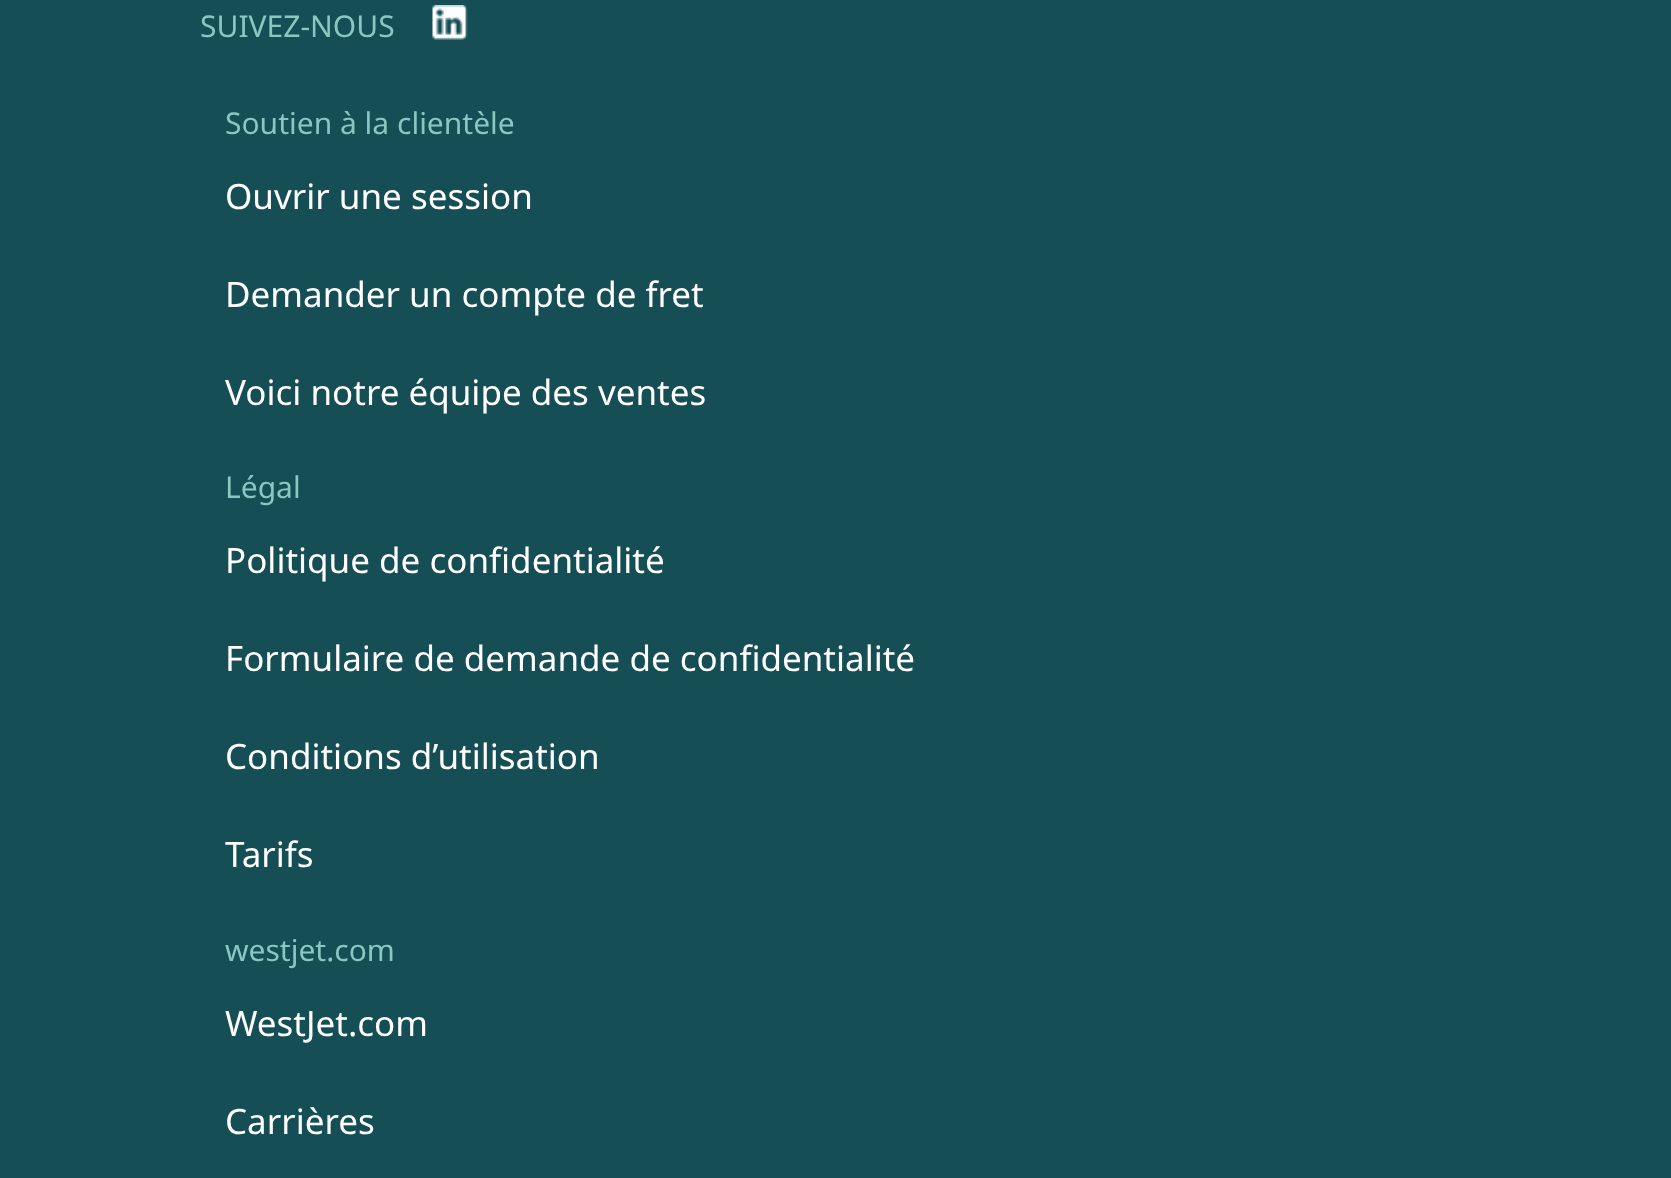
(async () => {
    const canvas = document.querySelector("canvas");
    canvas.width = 1671;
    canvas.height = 1178;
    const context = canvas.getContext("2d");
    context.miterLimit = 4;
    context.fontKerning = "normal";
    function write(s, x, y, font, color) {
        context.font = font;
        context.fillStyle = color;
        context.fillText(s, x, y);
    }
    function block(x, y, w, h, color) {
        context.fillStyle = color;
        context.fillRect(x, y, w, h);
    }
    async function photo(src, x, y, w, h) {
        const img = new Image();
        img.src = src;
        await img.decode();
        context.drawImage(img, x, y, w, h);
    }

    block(0, 0, 1671, 1178, "rgb(21, 78, 85)");
    write("SUIVEZ-NOUS", 200, 37, "30px Noto Sans", "rgb(137, 199, 194)");
    await photo("media/1.png", 432, 5, 36, 35);
    write("Soutien à la clientèle", 225, 134, "30px Noto Sans", "rgb(137, 199, 194)");
    write("Ouvrir une session", 225, 209, "35px Noto Sans", "rgb(255, 255, 255)");
    write("Demander un compte de fret", 225, 307, "35px Noto Sans", "rgb(255, 255, 255)");
    write("Voici notre équipe des ventes", 225, 405, "35px Noto Sans", "rgb(255, 255, 255)");
    write("Légal", 225, 498, "30px Noto Sans", "rgb(137, 199, 194)");
    write("Politique de confidentialité", 225, 573, "35px Noto Sans", "rgb(255, 255, 255)");
    write("Formulaire de demande de confidentialité", 225, 671, "35px Noto Sans", "rgb(255, 255, 255)");
    write("Conditions d’utilisation", 225, 769, "35px Noto Sans", "rgb(255, 255, 255)");
    write("Tarifs", 225, 867, "35px Noto Sans", "rgb(255, 255, 255)");
    write("westjet.com", 225, 961, "30px Noto Sans", "rgb(137, 199, 194)");
    write("WestJet.com", 225, 1036, "35px Noto Sans", "rgb(255, 255, 255)");
    write("Carrières", 225, 1134, "35px Noto Sans", "rgb(255, 255, 255)");
})();
